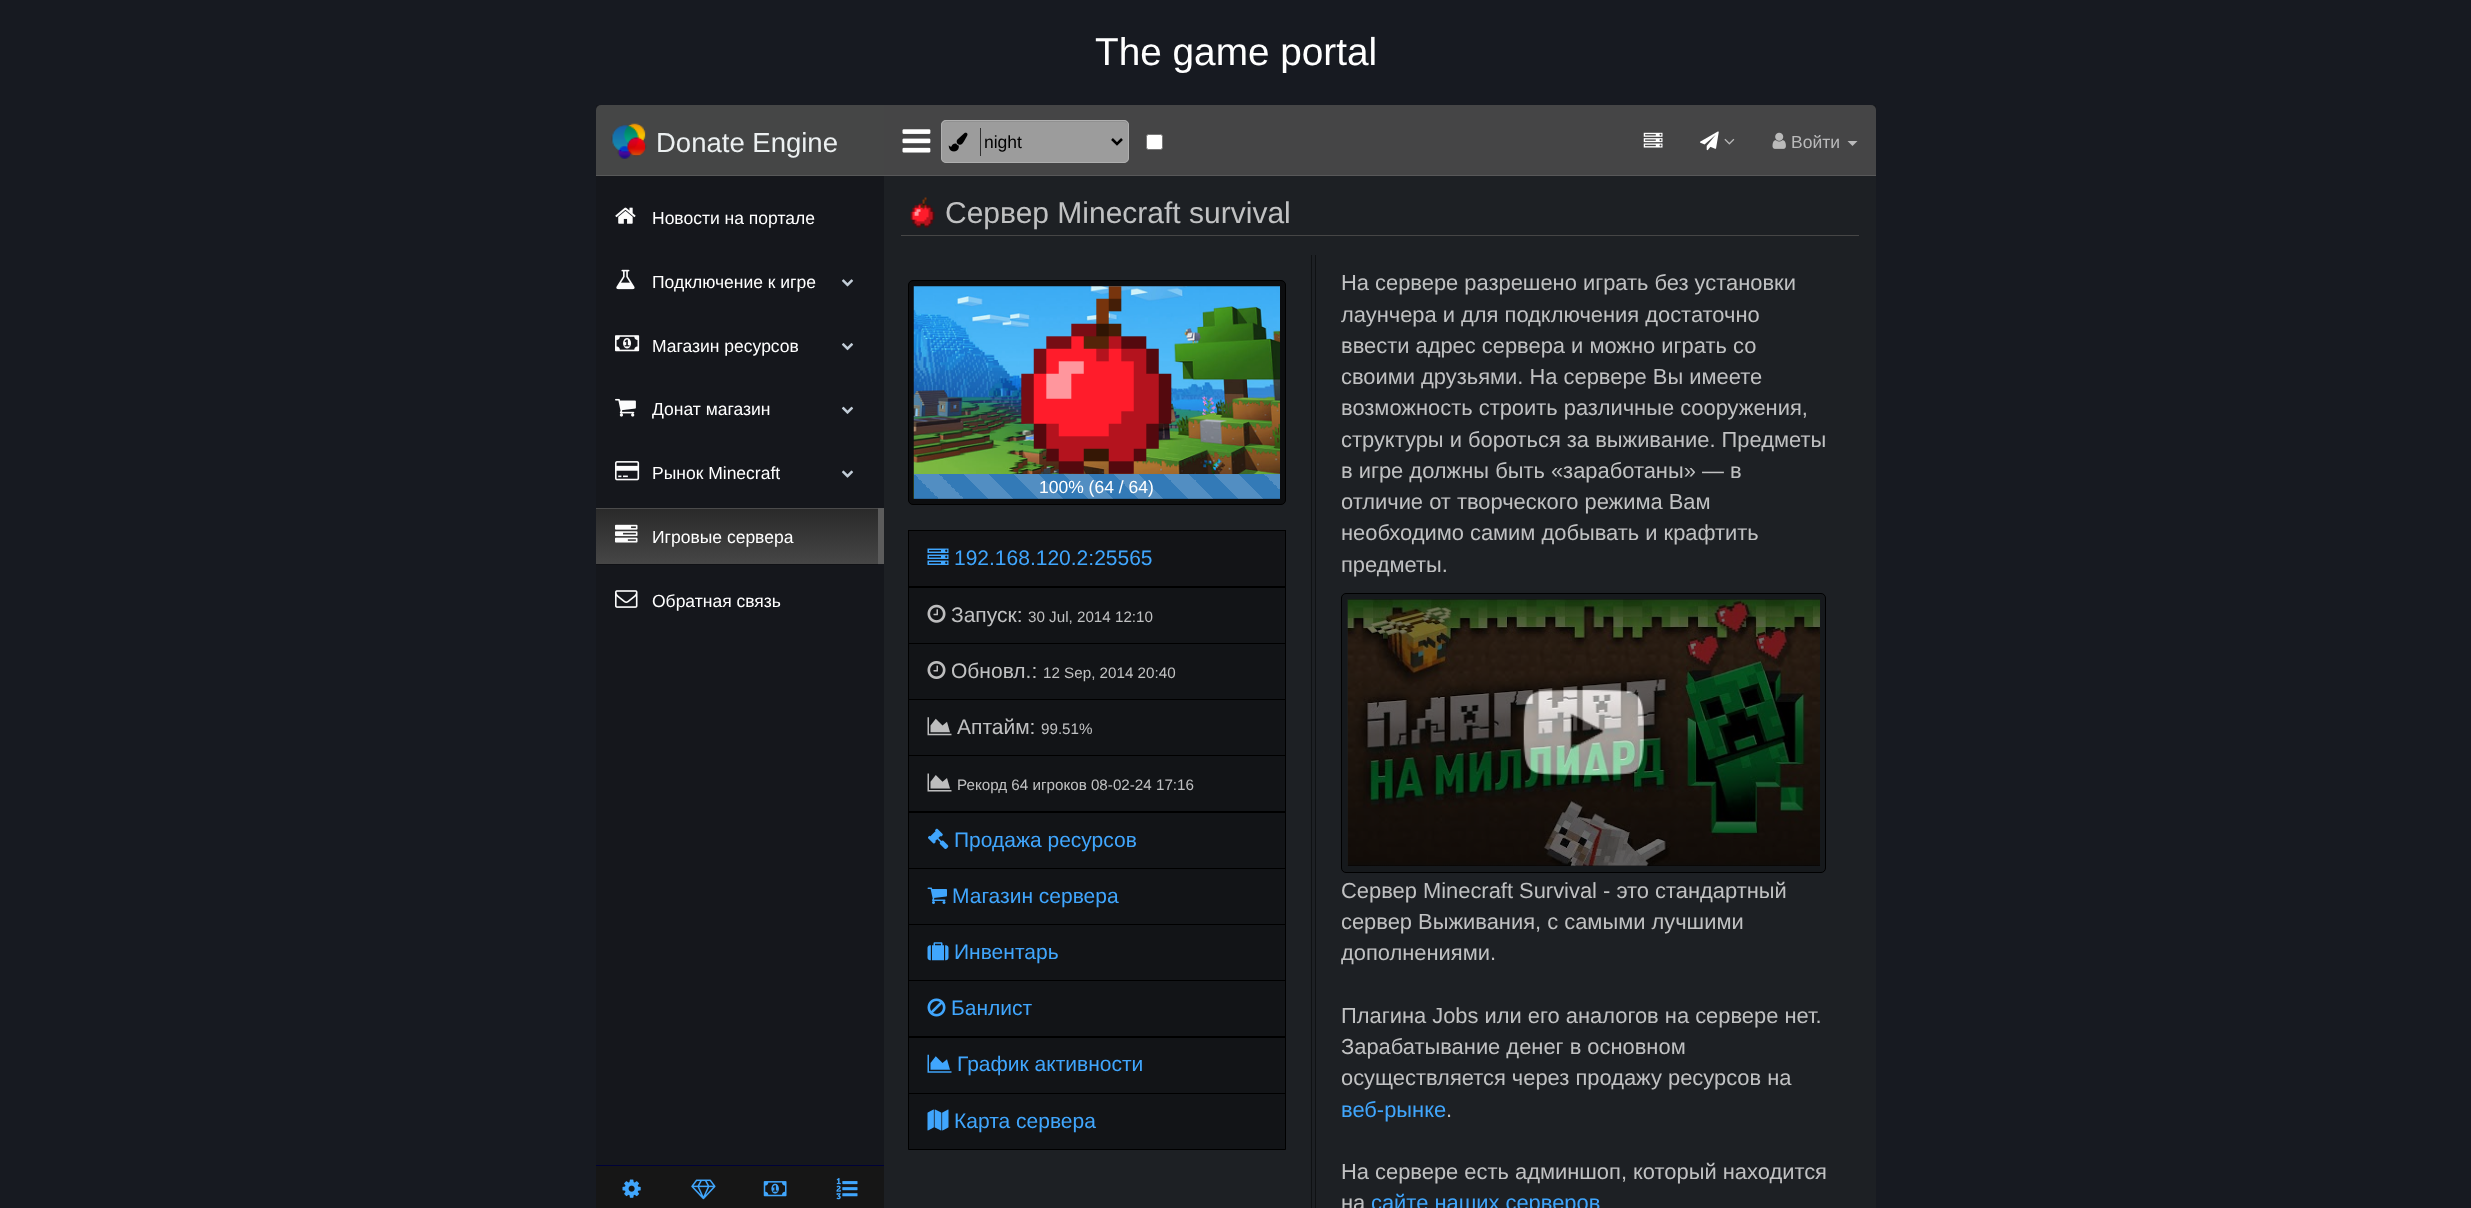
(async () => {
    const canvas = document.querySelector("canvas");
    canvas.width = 2471;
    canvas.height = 1208;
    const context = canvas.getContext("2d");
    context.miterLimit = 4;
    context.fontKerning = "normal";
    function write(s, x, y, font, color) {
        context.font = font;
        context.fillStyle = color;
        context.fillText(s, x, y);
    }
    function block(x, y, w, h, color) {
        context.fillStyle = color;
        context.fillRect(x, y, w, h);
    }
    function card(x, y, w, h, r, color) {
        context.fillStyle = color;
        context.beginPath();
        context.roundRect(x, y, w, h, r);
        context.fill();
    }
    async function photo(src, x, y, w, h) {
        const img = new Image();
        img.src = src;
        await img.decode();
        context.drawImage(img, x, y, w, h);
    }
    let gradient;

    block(0, 0, 2471, 1208, "rgb(23, 26, 33)");
    write("The game portal", 1095, 65, "38.75px Liberation Sans", "rgb(255, 255, 255)");
    block(596, 105, 1280, 1060, "rgb(21, 23, 28)");
    context.fillStyle = "rgb(69, 70, 70)";
    context.beginPath();
    context.roundRect(596, 105, 288, 71, [5, 0, 0, 0]);
    context.fill();
    block(596, 175, 288, 1, "rgb(88, 89, 89)");
    await photo("media/1.png", 611, 123, 36, 36);
    write("Donate Engine", 656, 152, "27.5px Liberation Sans", "rgb(236, 240, 241)");
    await photo("media/2.png", 615, 207, 21, 17);
    write("Новости на портале", 652, 224, "17.5px Liberation Sans", "rgb(255, 255, 255)");
    await photo("media/3.png", 616, 269, 19, 21);
    write("Подключение к игре", 652, 288, "17.5px Liberation Sans", "rgb(255, 255, 255)");
    await photo("media/4.png", 841, 279, 13, 8);
    await photo("media/5.png", 615, 335, 25, 17);
    write("Магазин ресурсов", 652, 352, "17.5px Liberation Sans", "rgb(255, 255, 255)");
    await photo("media/6.png", 841, 343, 13, 8);
    await photo("media/7.png", 615, 398, 21, 19);
    write("Донат магазин", 652, 415, "17.5px Liberation Sans", "rgb(255, 255, 255)");
    await photo("media/8.png", 841, 406, 13, 8);
    await photo("media/9.png", 615, 461, 25, 20);
    write("Рынок Minecraft", 652, 479, "17.5px Liberation Sans", "rgb(255, 255, 255)");
    await photo("media/10.png", 841, 470, 13, 8);
    block(878, 508, 6, 56, "rgb(92, 92, 92)");
    context.fillStyle = "rgb(16, 17, 21)";
    context.beginPath();
    context.moveTo(596, 509);
    context.lineTo(596, 565);
    context.lineTo(878, 565);
    context.lineTo(878, 509);
    context.lineTo(878, 564);
    context.lineTo(596, 564);
    context.closePath();
    context.fill();
    gradient = context.createLinearGradient(737, 508, 737, 564);
    gradient.addColorStop(0, "rgb(41, 41, 41)");
    gradient.addColorStop(1, "rgb(70, 70, 70)");
    context.fillStyle = gradient;
    context.fillRect(596, 509, 282, 55);
    block(596, 508, 282, 1, "rgb(75, 75, 75)");
    await photo("media/11.png", 615, 524, 23, 19);
    write("Игровые сервера", 652, 543, "17.5px Liberation Sans", "rgb(255, 255, 255)");
    await photo("media/12.png", 615, 590, 23, 18);
    write("Обратная связь", 652, 607, "17.5px Liberation Sans", "rgb(255, 255, 255)");
    block(596, 1165, 288, 1, "rgb(0, 2, 56)");
    block(596, 1166, 288, 42, "rgb(22, 22, 22)");
    await photo("media/13.png", 622, 1179, 19, 19);
    await photo("media/14.png", 691, 1179, 25, 21);
    await photo("media/15.png", 763, 1181, 24, 16);
    await photo("media/16.png", 836, 1178, 22, 22);
    context.fillStyle = "rgb(29, 32, 36)";
    context.beginPath();
    context.moveTo(884, 105);
    context.lineTo(1871, 105);
    context.bezierCurveTo(1874, 105, 1876, 107, 1876, 110);
    context.lineTo(1876, 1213);
    context.lineTo(884, 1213);
    context.closePath();
    context.fill();
    context.fillStyle = "rgba(76, 76, 76, 0.85)";
    context.beginPath();
    context.roundRect(884, 105, 992, 71, [0, 5, 0, 0]);
    context.fill();
    block(884, 175, 992, 1, "rgb(88, 88, 89)");
    await photo("media/17.png", 902, 129, 29, 24);
    card(941, 120, 188, 43, 5, "rgb(156, 156, 156)");
    context.fillStyle = "rgb(144, 144, 144)";
    context.beginPath();
    context.moveTo(946, 122);
    context.lineTo(1124, 122);
    context.bezierCurveTo(1126, 122, 1128, 124, 1128, 126);
    context.lineTo(1128, 125);
    context.bezierCurveTo(1128, 123, 1126, 121, 1124, 121);
    context.lineTo(947, 121);
    context.bezierCurveTo(946, 121, 944, 122, 944, 123);
    context.closePath();
    context.fill();
    context.beginPath();
    context.roundRect(941.5, 120.5, 187, 42, 4.5);
    context.strokeStyle = "rgb(175, 175, 175)";
    context.stroke();
    block(980, 128, 1, 28, "rgb(49, 49, 49)");
    await photo("media/18.png", 948, 132, 20, 20);
    context.beginPath();
    context.moveTo(1112, 139);
    context.lineTo(1117, 144);
    context.lineTo(1122, 139);
    context.strokeStyle = "rgb(0, 0, 0)";
    context.lineWidth = 2.5;
    context.stroke();
    write("night", 984, 148, "17.5px Liberation Sans", "rgb(0, 0, 0)");
    context.fillStyle = "rgb(255, 255, 255)";
    context.beginPath();
    context.roundRect(1146.5, 134.5, 16, 15, 2);
    context.fill();
    context.strokeStyle = "rgb(118, 118, 118)";
    context.lineWidth = 1;
    context.stroke();
    await photo("media/19.png", 1643, 132, 20, 16);
    await photo("media/20.png", 1700, 131, 19, 20);
    await photo("media/21.png", 1724, 138, 11, 7);
    await photo("media/22.png", 1772, 132, 14, 17);
    write("Войти", 1791, 148, "17.5px Liberation Sans", "rgb(186, 186, 187)");
    context.beginPath();
    context.moveTo(1847.5, 141);
    context.lineTo(1857.5, 141);
    context.lineTo(1852.5, 146);
    context.closePath();
    context.fill();
    block(901, 235, 958, 1, "rgb(70, 70, 70)");
    await photo("media/23.png", 910, 197, 25, 31);
    write("Сервер Minecraft survival", 945, 223, "30px Liberation Sans", "rgb(192, 193, 194)");
    context.fillStyle = "rgb(12, 13, 15)";
    context.beginPath();
    context.roundRect(908.5, 280.5, 377, 224, 4.5);
    context.fill();
    context.strokeStyle = "rgb(0, 0, 0)";
    context.stroke();
    await photo("media/24.png", 913, 286, 367, 213);
    await photo("media/25.png", 1021, 286, 151, 188);
    gradient = context.createLinearGradient(914, 524, 964, 474);
    gradient.addColorStop(0.25, "rgb(82, 142, 194)");
    gradient.addColorStop(0.25, "rgb(51, 122, 183)");
    gradient.addColorStop(0.5, "rgb(51, 122, 183)");
    gradient.addColorStop(0.5, "rgb(82, 142, 194)");
    gradient.addColorStop(0.75, "rgb(82, 142, 194)");
    gradient.addColorStop(0.75, "rgb(51, 122, 183)");
    gradient.addColorStop(1, "rgb(51, 122, 183)");
    context.fillStyle = gradient;
    context.fillRect(914, 474, 50, 25);
    gradient = context.createLinearGradient(964, 524, 1014, 474);
    gradient.addColorStop(0.25, "rgb(82, 142, 194)");
    gradient.addColorStop(0.25, "rgb(51, 122, 183)");
    gradient.addColorStop(0.5, "rgb(51, 122, 183)");
    gradient.addColorStop(0.5, "rgb(82, 142, 194)");
    gradient.addColorStop(0.75, "rgb(82, 142, 194)");
    gradient.addColorStop(0.75, "rgb(51, 122, 183)");
    gradient.addColorStop(1, "rgb(51, 122, 183)");
    context.fillStyle = gradient;
    context.fillRect(964, 474, 50, 25);
    gradient = context.createLinearGradient(1014, 524, 1064, 474);
    gradient.addColorStop(0.25, "rgb(82, 142, 194)");
    gradient.addColorStop(0.25, "rgb(51, 122, 183)");
    gradient.addColorStop(0.5, "rgb(51, 122, 183)");
    gradient.addColorStop(0.5, "rgb(82, 142, 194)");
    gradient.addColorStop(0.75, "rgb(82, 142, 194)");
    gradient.addColorStop(0.75, "rgb(51, 122, 183)");
    gradient.addColorStop(1, "rgb(51, 122, 183)");
    context.fillStyle = gradient;
    context.fillRect(1014, 474, 50, 25);
    gradient = context.createLinearGradient(1064, 524, 1114, 474);
    gradient.addColorStop(0.25, "rgb(82, 142, 194)");
    gradient.addColorStop(0.25, "rgb(51, 122, 183)");
    gradient.addColorStop(0.5, "rgb(51, 122, 183)");
    gradient.addColorStop(0.5, "rgb(82, 142, 194)");
    gradient.addColorStop(0.75, "rgb(82, 142, 194)");
    gradient.addColorStop(0.75, "rgb(51, 122, 183)");
    gradient.addColorStop(1, "rgb(51, 122, 183)");
    context.fillStyle = gradient;
    context.fillRect(1064, 474, 50, 25);
    gradient = context.createLinearGradient(1114, 524, 1164, 474);
    gradient.addColorStop(0.25, "rgb(82, 142, 194)");
    gradient.addColorStop(0.25, "rgb(51, 122, 183)");
    gradient.addColorStop(0.5, "rgb(51, 122, 183)");
    gradient.addColorStop(0.5, "rgb(82, 142, 194)");
    gradient.addColorStop(0.75, "rgb(82, 142, 194)");
    gradient.addColorStop(0.75, "rgb(51, 122, 183)");
    gradient.addColorStop(1, "rgb(51, 122, 183)");
    context.fillStyle = gradient;
    context.fillRect(1114, 474, 50, 25);
    gradient = context.createLinearGradient(1164, 524, 1214, 474);
    gradient.addColorStop(0.25, "rgb(82, 142, 194)");
    gradient.addColorStop(0.25, "rgb(51, 122, 183)");
    gradient.addColorStop(0.5, "rgb(51, 122, 183)");
    gradient.addColorStop(0.5, "rgb(82, 142, 194)");
    gradient.addColorStop(0.75, "rgb(82, 142, 194)");
    gradient.addColorStop(0.75, "rgb(51, 122, 183)");
    gradient.addColorStop(1, "rgb(51, 122, 183)");
    context.fillStyle = gradient;
    context.fillRect(1164, 474, 50, 25);
    gradient = context.createLinearGradient(1214, 524, 1264, 474);
    gradient.addColorStop(0.25, "rgb(82, 142, 194)");
    gradient.addColorStop(0.25, "rgb(51, 122, 183)");
    gradient.addColorStop(0.5, "rgb(51, 122, 183)");
    gradient.addColorStop(0.5, "rgb(82, 142, 194)");
    gradient.addColorStop(0.75, "rgb(82, 142, 194)");
    gradient.addColorStop(0.75, "rgb(51, 122, 183)");
    gradient.addColorStop(1, "rgb(51, 122, 183)");
    context.fillStyle = gradient;
    context.fillRect(1214, 474, 50, 25);
    gradient = context.createLinearGradient(1264, 524, 1314, 474);
    gradient.addColorStop(0.25, "rgb(82, 142, 194)");
    gradient.addColorStop(0.25, "rgb(51, 122, 183)");
    gradient.addColorStop(0.5, "rgb(51, 122, 183)");
    gradient.addColorStop(0.5, "rgb(82, 142, 194)");
    gradient.addColorStop(0.75, "rgb(82, 142, 194)");
    gradient.addColorStop(0.75, "rgb(51, 122, 183)");
    gradient.addColorStop(1, "rgb(51, 122, 183)");
    context.fillStyle = gradient;
    context.fillRect(1264, 474, 16, 25);
    block(914, 498, 366, 1, "rgba(0, 0, 0, 0.15)");
    write("100% (64 / 64)", 1039, 493, "17.5px Liberation Sans", "rgb(255, 255, 255)");
    block(909, 531, 376, 55, "rgb(19, 20, 23)");
    context.strokeRect(908.5, 530.5, 377, 57);
    await photo("media/26.png", 927, 548, 22, 17);
    write("192.168.120.2:25565", 954, 565, "21px Liberation Sans", "rgb(64, 166, 253)");
    block(909, 588, 376, 55, "rgba(0, 0, 0, 0.36)");
    context.strokeRect(908.5, 586.5, 377, 57);
    await photo("media/27.png", 927, 604, 19, 19);
    write("Запуск:", 951, 622, "21px Liberation Sans", "rgb(192, 193, 194)");
    write("30 Jul, 2014 12:10", 1028, 622, "15.2px Liberation Sans", "rgb(192, 193, 194)");
    context.fillStyle = "rgba(0, 0, 0, 0.36)";
    context.beginPath();
    context.rect(908.5, 643.5, 377, 56);
    context.fill();
    context.stroke();
    await photo("media/28.png", 927, 661, 19, 18);
    write("Обновл.:", 951, 678, "21px Liberation Sans", "rgb(192, 193, 194)");
    write("12 Sep, 2014 20:40", 1043, 678, "15.2px Liberation Sans", "rgb(192, 193, 194)");
    context.fillStyle = "rgba(0, 0, 0, 0.36)";
    context.beginPath();
    context.rect(908.5, 699.5, 377, 56);
    context.fill();
    context.stroke();
    await photo("media/29.png", 927, 717, 25, 19);
    write("Аптайм:", 957, 734, "21px Liberation Sans", "rgb(192, 193, 194)");
    write("99.51%", 1041, 734, "15.2px Liberation Sans", "rgb(192, 193, 194)");
    block(909, 756, 376, 55, "rgba(0, 0, 0, 0.36)");
    context.strokeRect(908.5, 755.5, 377, 57);
    await photo("media/30.png", 927, 773, 25, 19);
    write("Рекорд 64 игроков 08-02-24 17:16", 957, 790, "15.2px Liberation Sans", "rgb(192, 193, 194)");
    block(909, 813, 376, 55, "rgba(0, 0, 0, 0.36)");
    context.strokeRect(908.5, 811.5, 377, 57);
    await photo("media/31.png", 928, 828, 21, 21);
    write("Продажа ресурсов", 954, 847, "21px Liberation Sans", "rgb(64, 166, 253)");
    context.fillStyle = "rgba(0, 0, 0, 0.36)";
    context.beginPath();
    context.rect(908.5, 868.5, 377, 56);
    context.fill();
    context.stroke();
    await photo("media/32.png", 927, 887, 20, 17);
    write("Магазин сервера", 952, 903, "21px Liberation Sans", "rgb(64, 166, 253)");
    context.fillStyle = "rgba(0, 0, 0, 0.36)";
    context.beginPath();
    context.rect(908.5, 924.5, 377, 56);
    context.fill();
    context.stroke();
    await photo("media/33.png", 927, 942, 22, 19);
    write("Инвентарь", 954, 959, "21px Liberation Sans", "rgb(64, 166, 253)");
    block(909, 981, 376, 55, "rgba(0, 0, 0, 0.36)");
    context.strokeRect(908.5, 980.5, 377, 57);
    await photo("media/34.png", 927, 998, 19, 19);
    write("Банлист", 951, 1015, "21px Liberation Sans", "rgb(64, 166, 253)");
    block(909, 1038, 376, 55, "rgba(0, 0, 0, 0.36)");
    context.strokeRect(908.5, 1036.5, 377, 57);
    await photo("media/35.png", 927, 1054, 25, 19);
    write("График активности", 957, 1071, "21px Liberation Sans", "rgb(64, 166, 253)");
    context.fillStyle = "rgba(0, 0, 0, 0.36)";
    context.beginPath();
    context.rect(908.5, 1093.5, 377, 56);
    context.fill();
    context.stroke();
    await photo("media/36.png", 927, 1109, 22, 22);
    write("Карта сервера", 954, 1128, "21px Liberation Sans", "rgb(64, 166, 253)");
    block(1311, 255, 1, 953, "rgb(15, 17, 19)");
    block(1315, 255, 1, 953, "rgb(15, 17, 19)");
    write("На сервере разрешено играть без установки", 1341, 290, "21.9px Liberation Sans", "rgb(192, 193, 194)");
    write("лаунчера и для подключения достаточно", 1341, 322, "21.9px Liberation Sans", "rgb(192, 193, 194)");
    write("ввести адрес сервера и можно играть со", 1341, 353, "21.9px Liberation Sans", "rgb(192, 193, 194)");
    write("своими друзьями. На сервере Вы имеете", 1341, 384, "21.9px Liberation Sans", "rgb(192, 193, 194)");
    write("возможность строить различные сооружения,", 1341, 415, "21.9px Liberation Sans", "rgb(192, 193, 194)");
    write("структуры и бороться за выживание. Предметы", 1341, 447, "21.9px Liberation Sans", "rgb(192, 193, 194)");
    write("в игре должны быть «заработаны» — в", 1341, 478, "21.9px Liberation Sans", "rgb(192, 193, 194)");
    write("отличие от творческого режима Вам", 1341, 509, "21.9px Liberation Sans", "rgb(192, 193, 194)");
    write("необходимо самим добывать и крафтить", 1341, 540, "21.9px Liberation Sans", "rgb(192, 193, 194)");
    write("предметы.", 1341, 572, "21.9px Liberation Sans", "rgb(192, 193, 194)");
    context.fillStyle = "rgb(22, 25, 28)";
    context.beginPath();
    context.roundRect(1341.5, 593.5, 484, 279, 4.5);
    context.fill();
    context.stroke();
    block(1348, 599, 472, 267, "rgb(0, 0, 0)");
    await photo("media/37.png", 1523, 689, 121, 87);
    await photo("media/38.png", 1347, 599, 473, 267);
    write("Сервер Minecraft Survival - это стандартный", 1341, 898, "21.9px Liberation Sans", "rgb(192, 193, 194)");
    write("сервер Выживания, с самыми лучшими", 1341, 929, "21.9px Liberation Sans", "rgb(192, 193, 194)");
    write("дополнениями.", 1341, 960, "21.9px Liberation Sans", "rgb(192, 193, 194)");
    write("Плагина Jobs или его аналогов на сервере нет.", 1341, 1023, "21.9px Liberation Sans", "rgb(192, 193, 194)");
    write("Зарабатывание денег в основном", 1341, 1054, "21.9px Liberation Sans", "rgb(192, 193, 194)");
    write("осуществляется через продажу ресурсов на", 1341, 1085, "21.9px Liberation Sans", "rgb(192, 193, 194)");
    write("веб-рынке", 1341, 1117, "21.9px Liberation Sans", "rgb(64, 166, 253)");
    write(".", 1446, 1117, "21.9px Liberation Sans", "rgb(192, 193, 194)");
    write("На сервере есть админшоп, который находится", 1341, 1179, "21.9px Liberation Sans", "rgb(192, 193, 194)");
    write("на", 1341, 1210, "21.9px Liberation Sans", "rgb(192, 193, 194)");
    write("сайте наших серверов", 1371, 1210, "21.9px Liberation Sans", "rgb(64, 166, 253)");
})();
